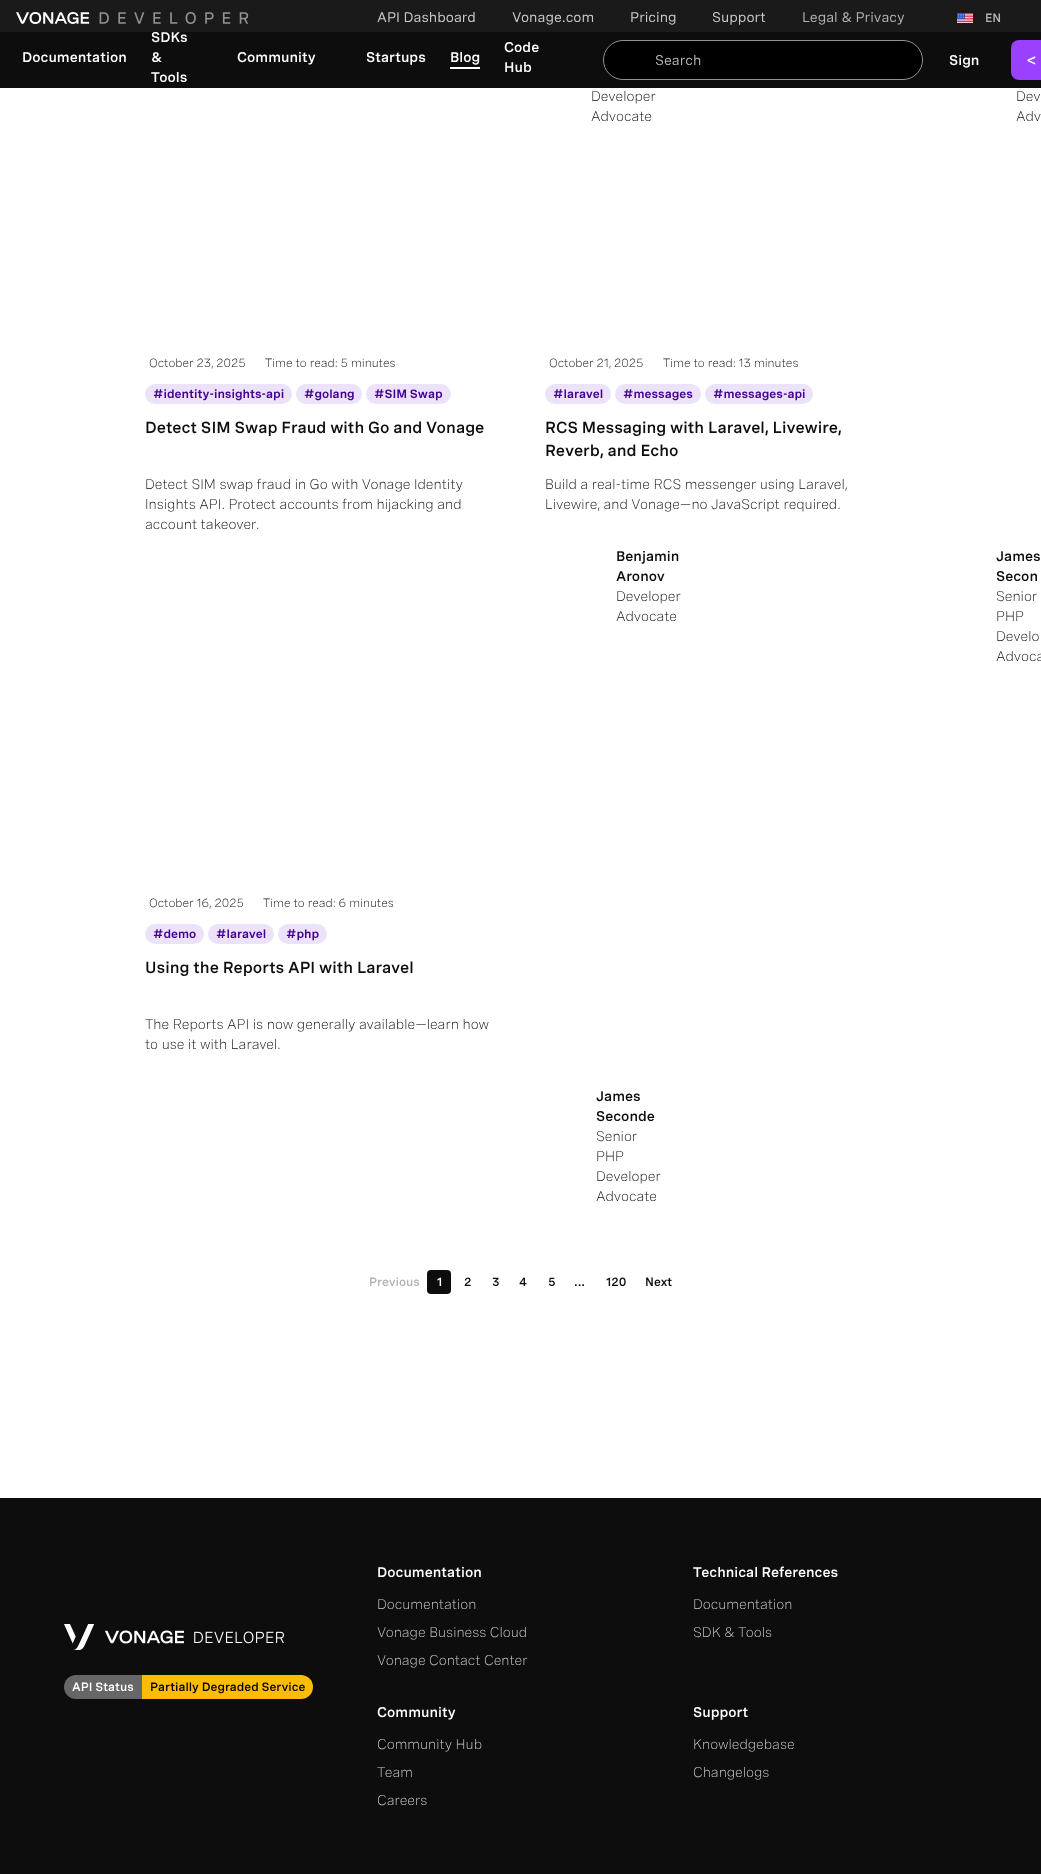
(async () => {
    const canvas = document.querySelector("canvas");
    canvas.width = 1041;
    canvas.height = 1874;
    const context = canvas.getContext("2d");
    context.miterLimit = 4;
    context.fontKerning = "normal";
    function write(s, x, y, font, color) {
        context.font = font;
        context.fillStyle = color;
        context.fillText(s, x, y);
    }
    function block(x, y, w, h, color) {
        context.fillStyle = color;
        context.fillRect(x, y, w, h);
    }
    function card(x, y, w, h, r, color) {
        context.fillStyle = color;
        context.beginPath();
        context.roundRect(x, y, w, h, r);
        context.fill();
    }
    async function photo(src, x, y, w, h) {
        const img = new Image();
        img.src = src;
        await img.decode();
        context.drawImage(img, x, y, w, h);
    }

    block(0, 0, 1041, 1874, "rgb(255, 255, 255)");
    block(0, 0, 1041, 32, "rgb(26, 26, 26)");
    await photo("media/1.png", 16, 12, 233, 12);
    write("API Dashboard", 377, 22, "14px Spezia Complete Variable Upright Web", "rgb(204, 204, 204)");
    write("Vonage.com", 512, 22, "14px Spezia Complete Variable Upright Web", "rgb(204, 204, 204)");
    write("Pricing", 630, 22, "14px Spezia Complete Variable Upright Web", "rgb(204, 204, 204)");
    write("Support", 712, 22, "14px Spezia Complete Variable Upright Web", "rgb(204, 204, 204)");
    write("Legal & Privacy", 802, 22, "14px Spezia Complete Variable Upright Web", "rgb(179, 179, 179)");
    await photo("media/2.png", 957, 13, 16, 10);
    write("EN", 985, 22, "600 12px Spezia Complete Variable Upright Web", "rgb(179, 179, 179)");
    block(0, 32, 1041, 56, "rgb(13, 13, 13)");
    write("Documentation", 22, 62, "600 14px Spezia Complete Variable Upright Web", "rgb(255, 255, 255)");
    write("SDKs", 151, 42, "600 14px Spezia Complete Variable Upright Web", "rgb(255, 255, 255)");
    write("&", 151, 62, "600 14px Spezia Complete Variable Upright Web", "rgb(255, 255, 255)");
    write("Tools", 151, 82, "600 14px Spezia Complete Variable Upright Web", "rgb(255, 255, 255)");
    write("Community", 237, 62, "600 14px Spezia Complete Variable Upright Web", "rgb(255, 255, 255)");
    write("Startups", 366, 62, "600 14px Spezia Complete Variable Upright Web", "rgb(255, 255, 255)");
    block(450, 67, 30, 2, "rgb(255, 255, 255)");
    write("Blog", 450, 62, "600 14px Spezia Complete Variable Upright Web", "rgb(255, 255, 255)");
    write("Code", 504, 52, "600 14px Spezia Complete Variable Upright Web", "rgb(255, 255, 255)");
    write("Hub", 504, 72, "600 14px Spezia Complete Variable Upright Web", "rgb(255, 255, 255)");
    card(603, 40, 320, 40, 20, "rgb(0, 0, 0)");
    context.beginPath();
    context.roundRect(603.5, 40.5, 319, 39, 19.5);
    context.strokeStyle = "rgb(146, 146, 146)";
    context.stroke();
    write("Search", 655, 65, "14px Spezia Complete Variable Upright Web", "rgb(179, 179, 179)");
    write("Sign", 949, 65, "600 14px Spezia Complete Variable Upright Web", "rgb(255, 255, 255)");
    context.fillStyle = "rgb(153, 65, 255)";
    context.beginPath();
    context.roundRect(1011, 40, 30, 40, [8, 0, 0, 8]);
    context.fill();
    write("<", 1027, 65, "600 14px Spezia Complete Variable Upright Web", "rgb(255, 255, 255)");
    write("Developer", 591, 101, "200 14px Spezia Complete Variable Upright Web", "rgb(13, 13, 13)");
    write("Advocate", 591, 121, "200 14px Spezia Complete Variable Upright Web", "rgb(13, 13, 13)");
    write("Dev", 1016, 101, "200 14px Spezia Complete Variable Upright Web", "rgb(13, 13, 13)");
    write("Adv", 1016, 121, "200 14px Spezia Complete Variable Upright Web", "rgb(13, 13, 13)");
    write("October 23, 2025", 149, 367, "200 12px Spezia Complete Variable Upright Web", "rgb(13, 13, 13)");
    write("Time to read: 5 minutes", 265, 367, "200 12px Spezia Complete Variable Upright Web", "rgb(13, 13, 13)");
    card(145, 384, 147, 20, 10, "rgb(236, 226, 250)");
    write("#identity-insights-api", 153, 398, "bold 12px Spezia Complete Variable Upright Web", "rgb(68, 2, 145)");
    card(296, 384, 66, 20, 10, "rgb(236, 226, 250)");
    write("#golang", 304, 398, "bold 12px Spezia Complete Variable Upright Web", "rgb(68, 2, 145)");
    card(366, 384, 85, 20, 10, "rgb(236, 226, 250)");
    write("#SIM Swap", 374, 398, "bold 12px Spezia Complete Variable Upright Web", "rgb(68, 2, 145)");
    write("Detect SIM Swap Fraud with Go and Vonage", 145, 433, "600 16px Spezia Complete Variable Upright Web", "rgb(13, 13, 13)");
    write("Detect SIM swap fraud in Go with Vonage Identity", 145, 489, "200 14px Spezia Complete Variable Upright Web", "rgb(13, 13, 13)");
    write("Insights API. Protect accounts from hijacking and", 145, 509, "200 14px Spezia Complete Variable Upright Web", "rgb(13, 13, 13)");
    write("account takeover.", 145, 529, "200 14px Spezia Complete Variable Upright Web", "rgb(13, 13, 13)");
    write("Benjamin", 616, 561, "600 14px Spezia Complete Variable Upright Web", "rgb(13, 13, 13)");
    write("Aronov", 616, 581, "600 14px Spezia Complete Variable Upright Web", "rgb(13, 13, 13)");
    write("Developer", 616, 601, "200 14px Spezia Complete Variable Upright Web", "rgb(13, 13, 13)");
    write("Advocate", 616, 621, "200 14px Spezia Complete Variable Upright Web", "rgb(13, 13, 13)");
    write("October 21, 2025", 549, 367, "200 12px Spezia Complete Variable Upright Web", "rgb(13, 13, 13)");
    write("Time to read: 13 minutes", 663, 367, "200 12px Spezia Complete Variable Upright Web", "rgb(13, 13, 13)");
    card(545, 384, 66, 20, 10, "rgb(236, 226, 250)");
    write("#laravel", 553, 398, "bold 12px Spezia Complete Variable Upright Web", "rgb(68, 2, 145)");
    card(615, 384, 86, 20, 10, "rgb(236, 226, 250)");
    write("#messages", 623, 398, "bold 12px Spezia Complete Variable Upright Web", "rgb(68, 2, 145)");
    card(705, 384, 108, 20, 10, "rgb(236, 226, 250)");
    write("#messages-api", 713, 398, "bold 12px Spezia Complete Variable Upright Web", "rgb(68, 2, 145)");
    write("RCS Messaging with Laravel, Livewire,", 545, 433, "600 16px Spezia Complete Variable Upright Web", "rgb(13, 13, 13)");
    write("Reverb, and Echo", 545, 456, "600 16px Spezia Complete Variable Upright Web", "rgb(13, 13, 13)");
    write("Build a real-time RCS messenger using Laravel,", 545, 489, "200 14px Spezia Complete Variable Upright Web", "rgb(13, 13, 13)");
    write("Livewire, and Vonage—no JavaScript required.", 545, 509, "200 14px Spezia Complete Variable Upright Web", "rgb(13, 13, 13)");
    write("James", 996, 561, "600 14px Spezia Complete Variable Upright Web", "rgb(13, 13, 13)");
    write("Secon", 996, 581, "600 14px Spezia Complete Variable Upright Web", "rgb(13, 13, 13)");
    write("Senior", 996, 601, "200 14px Spezia Complete Variable Upright Web", "rgb(13, 13, 13)");
    write("PHP", 996, 621, "200 14px Spezia Complete Variable Upright Web", "rgb(13, 13, 13)");
    write("Develo", 996, 641, "200 14px Spezia Complete Variable Upright Web", "rgb(13, 13, 13)");
    write("Advoca", 996, 661, "200 14px Spezia Complete Variable Upright Web", "rgb(13, 13, 13)");
    write("October 16, 2025", 149, 907, "200 12px Spezia Complete Variable Upright Web", "rgb(13, 13, 13)");
    write("Time to read: 6 minutes", 263, 907, "200 12px Spezia Complete Variable Upright Web", "rgb(13, 13, 13)");
    card(145, 924, 59, 20, 10, "rgb(236, 226, 250)");
    write("#demo", 153, 938, "bold 12px Spezia Complete Variable Upright Web", "rgb(68, 2, 145)");
    card(208, 924, 66, 20, 10, "rgb(236, 226, 250)");
    write("#laravel", 216, 938, "bold 12px Spezia Complete Variable Upright Web", "rgb(68, 2, 145)");
    card(278, 924, 49, 20, 10, "rgb(236, 226, 250)");
    write("#php", 286, 938, "bold 12px Spezia Complete Variable Upright Web", "rgb(68, 2, 145)");
    write("Using the Reports API with Laravel", 145, 973, "600 16px Spezia Complete Variable Upright Web", "rgb(13, 13, 13)");
    write("The Reports API is now generally available—learn how", 145, 1029, "200 14px Spezia Complete Variable Upright Web", "rgb(13, 13, 13)");
    write("to use it with Laravel.", 145, 1049, "200 14px Spezia Complete Variable Upright Web", "rgb(13, 13, 13)");
    write("James", 596, 1101, "600 14px Spezia Complete Variable Upright Web", "rgb(13, 13, 13)");
    write("Seconde", 596, 1121, "600 14px Spezia Complete Variable Upright Web", "rgb(13, 13, 13)");
    write("Senior", 596, 1141, "200 14px Spezia Complete Variable Upright Web", "rgb(13, 13, 13)");
    write("PHP", 596, 1161, "200 14px Spezia Complete Variable Upright Web", "rgb(13, 13, 13)");
    write("Developer", 596, 1181, "200 14px Spezia Complete Variable Upright Web", "rgb(13, 13, 13)");
    write("Advocate", 596, 1201, "200 14px Spezia Complete Variable Upright Web", "rgb(13, 13, 13)");
    write("Previous", 369, 1286, "600 12px Spezia Complete Variable Upright Web", "rgb(179, 179, 179)");
    card(427, 1270, 24, 24, 4, "rgb(13, 13, 13)");
    write("1", 437, 1286, "600 12px Spezia Complete Variable Upright Web", "rgb(255, 255, 255)");
    write("2", 464, 1286, "600 12px Spezia Complete Variable Upright Web", "rgb(13, 13, 13)");
    write("3", 492, 1286, "600 12px Spezia Complete Variable Upright Web", "rgb(13, 13, 13)");
    write("4", 519, 1286, "600 12px Spezia Complete Variable Upright Web", "rgb(13, 13, 13)");
    write("5", 548, 1286, "600 12px Spezia Complete Variable Upright Web", "rgb(13, 13, 13)");
    write("...", 574, 1286, "600 12px Spezia Complete Variable Upright Web", "rgb(13, 13, 13)");
    write("120", 606, 1286, "600 12px Spezia Complete Variable Upright Web", "rgb(13, 13, 13)");
    write("Next", 645, 1286, "600 12px Spezia Complete Variable Upright Web", "rgb(13, 13, 13)");
    block(0, 1498, 1041, 376, "rgb(13, 13, 13)");
    await photo("media/3.png", 64, 1624, 220, 26);
    context.fillStyle = "rgb(102, 102, 102)";
    context.beginPath();
    context.roundRect(64, 1675, 78, 24, [12, 0, 0, 12]);
    context.fill();
    write("API Status", 72, 1691, "600 12px Spezia Complete Variable Upright Web", "rgb(255, 255, 255)");
    context.fillStyle = "rgb(251, 188, 4)";
    context.beginPath();
    context.roundRect(142, 1675, 171, 24, [0, 12, 12, 0]);
    context.fill();
    write("Partially Degraded Service", 150, 1691, "600 12px Spezia Complete Variable Upright Web", "rgb(0, 0, 0)");
    write("Documentation", 377, 1577, "600 14px Spezia Complete Variable Upright Web", "rgb(255, 255, 255)");
    write("Documentation", 377, 1609, "200 14px Spezia Complete Variable Upright Web", "rgb(204, 204, 204)");
    write("Vonage Business Cloud", 377, 1637, "200 14px Spezia Complete Variable Upright Web", "rgb(204, 204, 204)");
    write("Vonage Contact Center", 377, 1665, "200 14px Spezia Complete Variable Upright Web", "rgb(204, 204, 204)");
    write("Technical References", 693, 1577, "600 14px Spezia Complete Variable Upright Web", "rgb(255, 255, 255)");
    write("Documentation", 693, 1609, "200 14px Spezia Complete Variable Upright Web", "rgb(204, 204, 204)");
    write("SDK & Tools", 693, 1637, "200 14px Spezia Complete Variable Upright Web", "rgb(204, 204, 204)");
    write("Community", 377, 1717, "600 14px Spezia Complete Variable Upright Web", "rgb(255, 255, 255)");
    write("Community Hub", 377, 1749, "200 14px Spezia Complete Variable Upright Web", "rgb(204, 204, 204)");
    write("Team", 377, 1777, "200 14px Spezia Complete Variable Upright Web", "rgb(204, 204, 204)");
    write("Careers", 377, 1805, "200 14px Spezia Complete Variable Upright Web", "rgb(204, 204, 204)");
    write("Support", 693, 1717, "600 14px Spezia Complete Variable Upright Web", "rgb(255, 255, 255)");
    write("Knowledgebase", 693, 1749, "200 14px Spezia Complete Variable Upright Web", "rgb(204, 204, 204)");
    write("Changelogs", 693, 1777, "200 14px Spezia Complete Variable Upright Web", "rgb(204, 204, 204)");
})();
